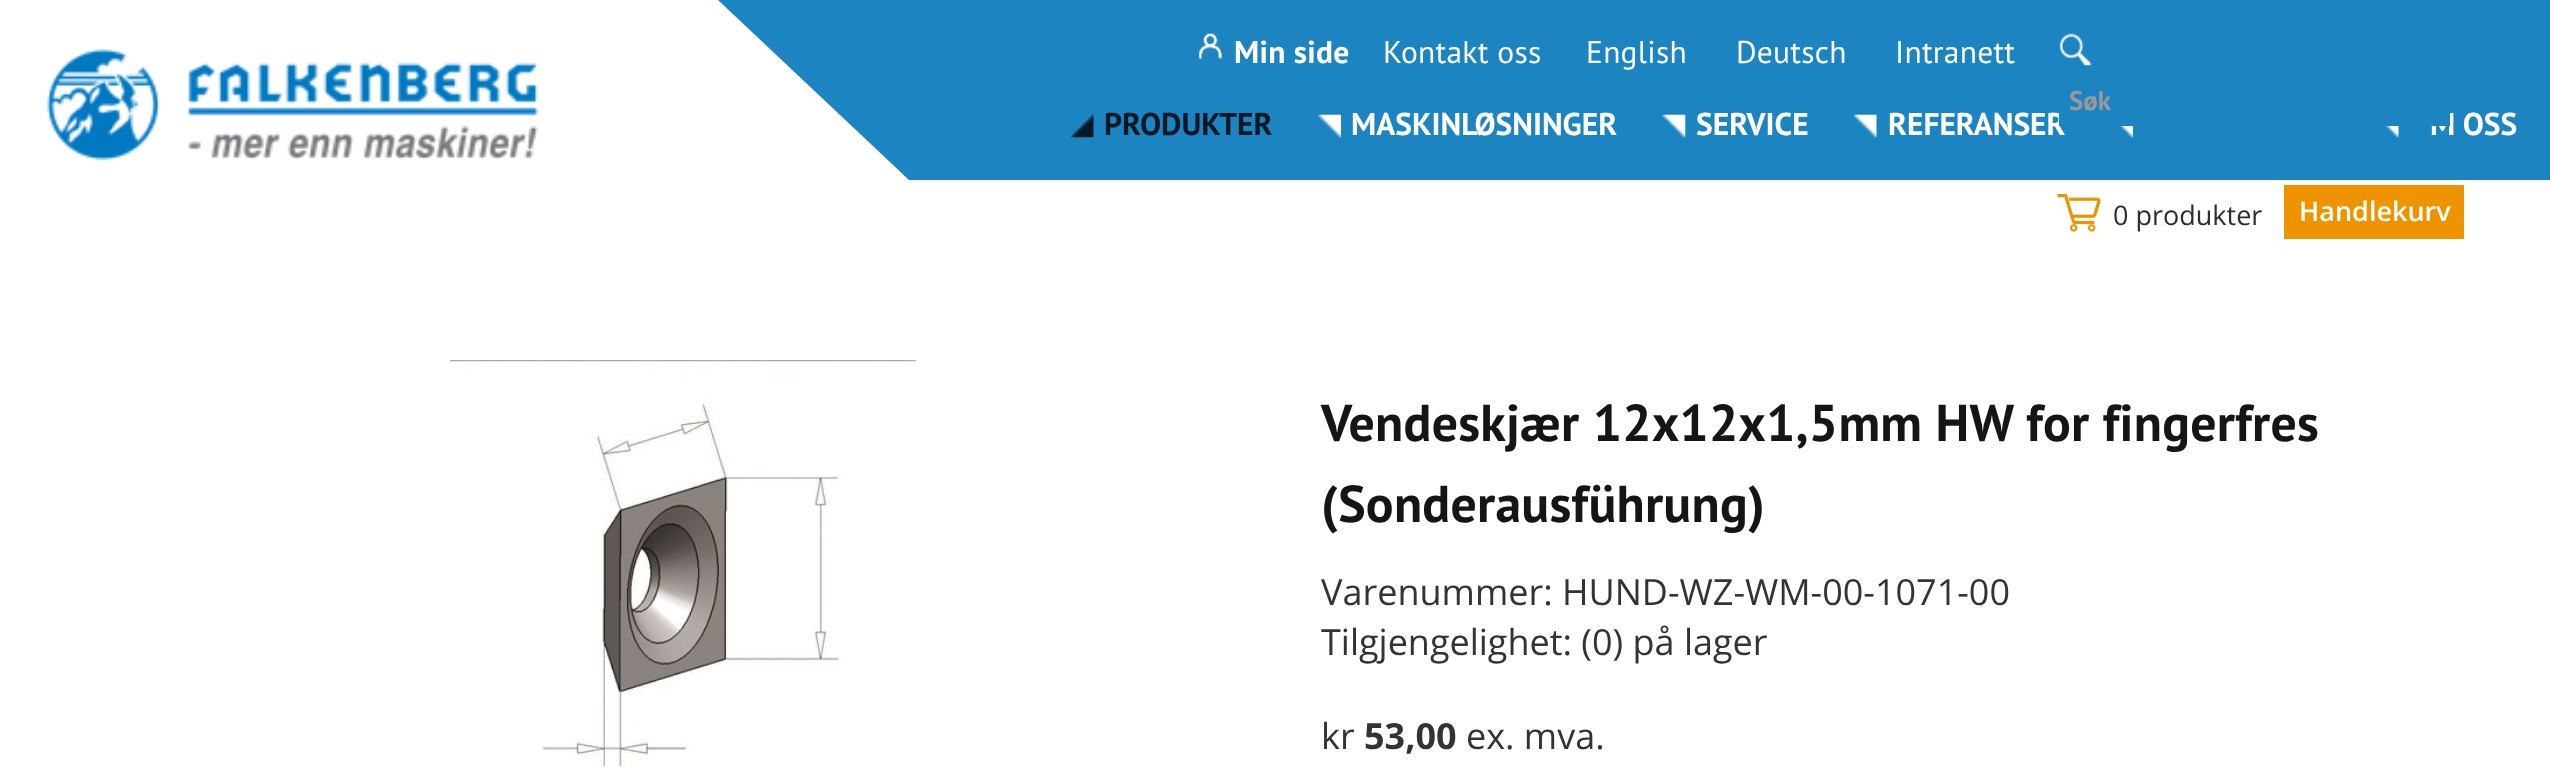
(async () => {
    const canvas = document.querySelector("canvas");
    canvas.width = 2550;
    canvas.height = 770;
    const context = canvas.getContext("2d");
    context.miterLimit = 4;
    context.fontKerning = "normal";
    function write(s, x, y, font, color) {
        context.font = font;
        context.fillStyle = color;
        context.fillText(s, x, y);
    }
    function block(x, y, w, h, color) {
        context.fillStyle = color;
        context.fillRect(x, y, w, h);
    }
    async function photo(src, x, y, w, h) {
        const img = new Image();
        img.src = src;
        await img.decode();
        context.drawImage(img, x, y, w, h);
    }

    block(0, 0, 2550, 770, "rgb(255, 255, 255)");
    await photo("media/1.png", 46, 49, 493, 112);
    block(909, 0, 1641, 180, "rgb(29, 132, 194)");
    context.beginPath();
    context.moveTo(909, 0);
    context.lineTo(909, 180);
    context.lineTo(718, 0);
    context.closePath();
    context.fill();
    await photo("media/2.png", 1199, 33, 23, 26);
    context.letterSpacing = "0.25px";
    write("Min side", 1234, 63, "bold 31.5px PT Sans", "rgb(255, 255, 255)");
    write("Kontakt oss", 1383, 63, "31.5px PT Sans", "rgb(255, 255, 255)");
    write("English", 1586, 63, "31.5px PT Sans", "rgb(255, 255, 255)");
    write("Deutsch", 1736, 63, "31.5px PT Sans", "rgb(255, 255, 255)");
    write("Intranett", 1895, 63, "31.5px PT Sans", "rgb(255, 255, 255)");
    await photo("media/3.png", 2059, 33, 33, 33);
    context.letterSpacing = "0px";
    write("REFERANSER", 1888, 135, "bold 31.5px PT Sans", "rgb(255, 255, 255)");
    write("M OSS", 2430, 135, "bold 31.5px PT Sans", "rgb(255, 255, 255)");
    block(2059, 112, 391, 14, "rgb(29, 132, 194)");
    write("Søk", 2069, 110, "bold 27px PT Sans", "rgb(153, 153, 153)");
    await photo("media/4.png", 1071, 114, 23, 24);
    write("PRODUKTER", 1104, 135, "bold 31.5px PT Sans", "rgb(5, 25, 37)");
    await photo("media/5.png", 1318, 114, 23, 24);
    write("MASKINLØSNINGER", 1351, 135, "bold 31.5px PT Sans", "rgb(255, 255, 255)");
    await photo("media/6.png", 1662, 114, 24, 24);
    write("SERVICE", 1696, 135, "bold 31.5px PT Sans", "rgb(255, 255, 255)");
    await photo("media/7.png", 1854, 114, 23, 24);
    await photo("media/8.png", 2119, 126, 14, 12);
    await photo("media/9.png", 2384, 126, 15, 12);
    await photo("media/10.png", 2057, 194, 44, 38);
    write("0 produkter", 2113, 225, "27px Open Sans", "rgb(45, 45, 45)");
    block(2284, 185, 180, 54, "rgb(238, 148, 0)");
    write("Handlekurv", 2299, 221, "600 27px Open Sans", "rgb(255, 255, 255)");
    await photo("media/11.png", 450, 360, 466, 408);
    context.letterSpacing = "0.25px";
    write("Vendeskjær 12x12x1,5mm HW for fingerfres", 1321, 441, "bold 51.75px PT Sans", "rgb(21, 21, 21)");
    write("(Sonderausführung)", 1321, 522, "bold 51.75px PT Sans", "rgb(21, 21, 21)");
    context.letterSpacing = "0px";
    write("Varenummer: HUND-WZ-WM-00-1071-00", 1321, 605, "36px Open Sans", "rgb(51, 51, 51)");
    write("Tilgjengelighet: (0) på lager", 1321, 655, "36px Open Sans", "rgb(51, 51, 51)");
    write("kr", 1321, 749, "36px Open Sans", "rgb(51, 51, 51)");
    write("53,00", 1364, 749, "bold 36px Open Sans", "rgb(51, 51, 51)");
    write("ex. mva.", 1466, 749, "36px Open Sans", "rgb(51, 51, 51)");
})();
